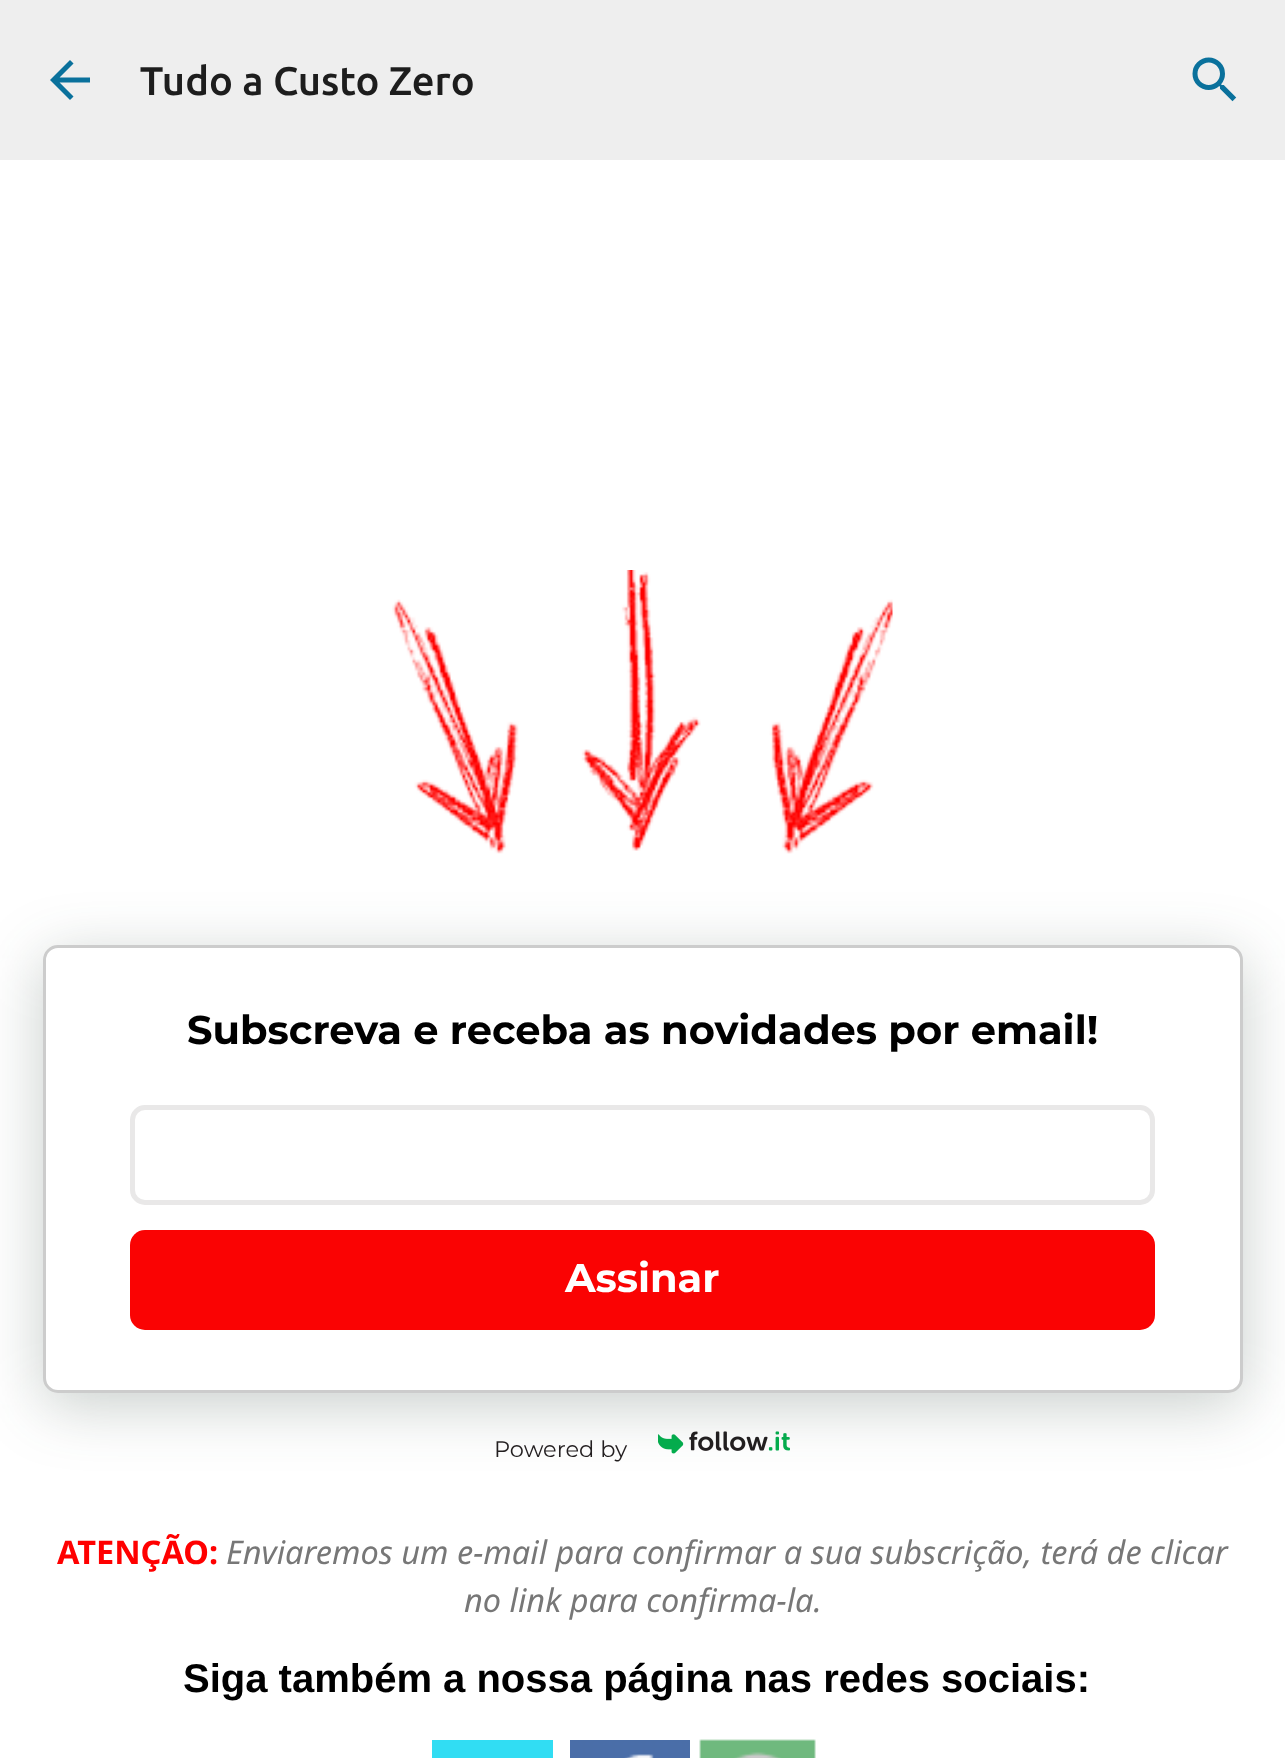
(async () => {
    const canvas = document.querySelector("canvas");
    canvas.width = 1285;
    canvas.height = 1758;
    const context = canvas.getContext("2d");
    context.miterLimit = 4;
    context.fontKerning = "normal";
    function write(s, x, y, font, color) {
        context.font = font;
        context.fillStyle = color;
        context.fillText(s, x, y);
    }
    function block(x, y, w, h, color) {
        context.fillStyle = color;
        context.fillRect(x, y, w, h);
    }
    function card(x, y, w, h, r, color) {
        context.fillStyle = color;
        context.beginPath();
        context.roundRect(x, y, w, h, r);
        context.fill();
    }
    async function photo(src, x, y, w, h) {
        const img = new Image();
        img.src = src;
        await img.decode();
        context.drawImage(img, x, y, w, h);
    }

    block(0, 0, 1285, 1758, "rgb(255, 255, 255)");
    block(0, 0, 1285, 160, "rgb(238, 238, 238)");
    await photo("media/1.png", 50, 60, 40, 40);
    write("Tudo a Custo Zero", 140, 95, "500 40px Ubuntu", "rgb(29, 29, 29)");
    await photo("media/2.png", 1192, 57, 45, 45);
    await photo("media/3.png", 392, 570, 501, 284);
    await photo("media/4.png", 658, 1431, 132, 23);
    context.fillStyle = "rgba(34, 60, 47, 0.25)";
    context.filter = "blur(31px)";
    context.beginPath();
    context.roundRect(43, 958, 1200, 447, 15);
    context.fill();
    context.filter = "none";
    context.fillStyle = "rgb(255, 255, 255)";
    context.beginPath();
    context.roundRect(44.5, 946.5, 1197, 445, 13.5);
    context.fill();
    context.strokeStyle = "rgb(204, 204, 204)";
    context.lineWidth = 3;
    context.stroke();
    write("Subscreva e receba as novidades por email!", 187, 1044, "100 40px 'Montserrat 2'", "rgb(0, 0, 0)");
    context.beginPath();
    context.roundRect(132.5, 1107.5, 1020, 95, 12.5);
    context.strokeStyle = "rgb(233, 232, 232)";
    context.lineWidth = 5;
    context.stroke();
    card(130, 1230, 1025, 100, 15, "rgb(250, 3, 3)");
    write("Assinar", 565, 1292, "100 40px 'Montserrat 2'", "rgb(255, 255, 255)");
    write("Powered by", 494, 1457, "100 22.5px Montserrat", "rgb(35, 31, 32)");
    write("ATENÇÃO:", 57, 1564, "bold 32.5px Noto Sans", "rgb(255, 0, 0)");
    write("Enviaremos um e-mail para confirmar a sua subscrição, terá de clicar", 226, 1564, "italic 32.5px Noto Sans", "rgb(119, 119, 119)");
    write("no link para confirma-la.", 464, 1612, "italic 32.5px Noto Sans", "rgb(119, 119, 119)");
    write("Siga também a nossa página nas redes sociais:", 183, 1692, "bold 40px Liberation Sans", "rgb(0, 0, 0)");
    block(432, 1740, 121, 18, "rgb(49, 221, 243)");
    await photo("media/5.png", 570, 1740, 120, 18);
    await photo("media/6.png", 699, 1739, 117, 19);
})();
